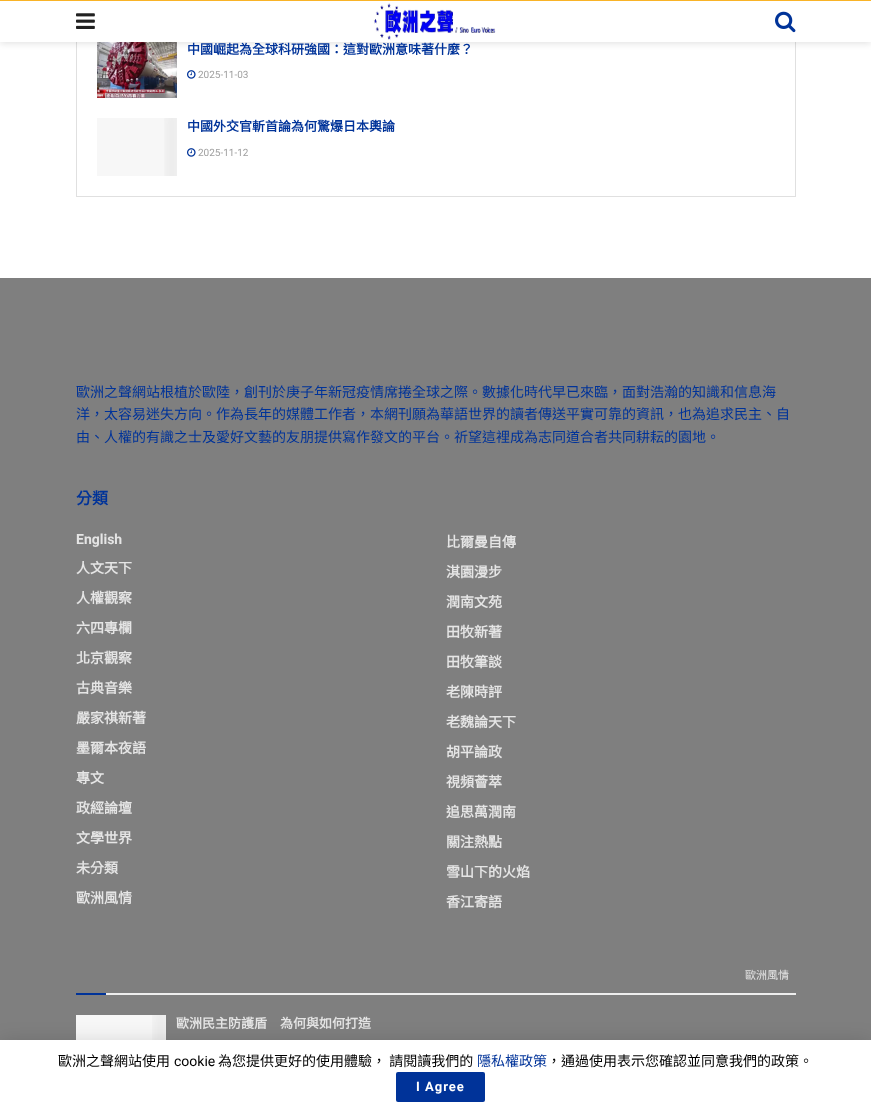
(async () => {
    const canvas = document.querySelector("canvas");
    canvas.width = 871;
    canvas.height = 1112;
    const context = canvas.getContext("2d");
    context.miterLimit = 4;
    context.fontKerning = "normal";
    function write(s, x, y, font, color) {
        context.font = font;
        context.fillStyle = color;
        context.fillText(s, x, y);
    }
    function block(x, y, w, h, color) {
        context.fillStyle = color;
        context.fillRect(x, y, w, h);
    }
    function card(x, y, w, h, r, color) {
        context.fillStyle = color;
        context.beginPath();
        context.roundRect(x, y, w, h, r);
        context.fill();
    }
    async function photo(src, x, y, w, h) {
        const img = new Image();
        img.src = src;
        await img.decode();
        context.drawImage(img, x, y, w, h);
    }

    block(0, 0, 871, 1112, "rgb(255, 255, 255)");
    context.strokeStyle = "rgb(224, 224, 224)";
    context.strokeRect(76.5, -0.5, 719, 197);
    await photo("media/4.png", 97, 42, 80, 56);
    context.fillStyle = "rgba(0, 0, 0, 0.1)";
    context.filter = "blur(3px)";
    context.beginPath();
    context.rect(0, 2, 871, 42);
    context.fill();
    context.filter = "none";
    block(0, 1, 871, 41, "rgb(255, 255, 255)");
    block(0, 0, 871, 1, "rgb(249, 179, 39)");
    await photo("media/1.png", 76, 13, 19, 16);
    await photo("media/2.png", 373, 3, 123, 37);
    await photo("media/3.png", 775, 11, 21, 22);
    write("中國崛起為全球科研強國：這對歐洲意味著什麼？", 187, 54, "bold 13px Noto Sans CJK TC", "rgb(0, 51, 153)");
    await photo("media/5.png", 187, 70, 9, 9);
    write("2025-11-03", 198, 78, "10px Roboto", "rgb(160, 160, 160)");
    block(97, 118, 67, 58, "rgb(247, 247, 247)");
    await photo("media/6.png", 164, 118, 13, 58);
    write("中國外交官斬首論為何驚爆日本輿論", 187, 131, "bold 13px Noto Sans CJK TC", "rgb(0, 51, 153)");
    await photo("media/5.png", 187, 148, 9, 9);
    write("2025-11-12", 198, 156, "10px Roboto", "rgb(160, 160, 160)");
    block(0, 278, 871, 762, "rgb(127, 127, 127)");
    write("歐洲之聲網站根植於歐陸，創刊於庚子年新冠疫情席捲全球之際。數據化時代早已來臨，面對浩瀚的知識和信息海", 76, 397, "14px Noto Sans CJK TC", "rgb(0, 51, 153)");
    write("洋，太容易迷失方向。作為長年的媒體工作者，本網刊願為華語世界的讀者傳送平實可靠的資訊，也為追求民主、自", 76, 419, "14px Noto Sans CJK TC", "rgb(0, 51, 153)");
    write("由、人權的有識之士及愛好文藝的友朋提供寫作發文的平台。祈望這裡成為志同道合者共同耕耘的園地。", 76, 442, "14px Noto Sans CJK TC", "rgb(0, 51, 153)");
    write("分類", 76, 504, "bold 16px Noto Sans CJK TC", "rgb(0, 51, 153)");
    write("English", 76, 544, "bold 14px Roboto", "rgb(229, 229, 229)");
    write("比爾曼自傳", 446, 547, "bold 14px Noto Sans CJK TC", "rgb(229, 229, 229)");
    write("人文天下", 76, 573, "bold 14px Noto Sans CJK TC", "rgb(229, 229, 229)");
    write("淇園漫步", 446, 577, "bold 14px Noto Sans CJK TC", "rgb(229, 229, 229)");
    write("人權觀察", 76, 603, "bold 14px Noto Sans CJK TC", "rgb(229, 229, 229)");
    write("潤南文苑", 446, 607, "bold 14px Noto Sans CJK TC", "rgb(229, 229, 229)");
    write("六四專欄", 76, 633, "bold 14px Noto Sans CJK TC", "rgb(229, 229, 229)");
    write("田牧新著", 446, 637, "bold 14px Noto Sans CJK TC", "rgb(229, 229, 229)");
    write("北京觀察", 76, 663, "bold 14px Noto Sans CJK TC", "rgb(229, 229, 229)");
    write("田牧筆談", 446, 667, "bold 14px Noto Sans CJK TC", "rgb(229, 229, 229)");
    write("古典音樂", 76, 693, "bold 14px Noto Sans CJK TC", "rgb(229, 229, 229)");
    write("老陳時評", 446, 697, "bold 14px Noto Sans CJK TC", "rgb(229, 229, 229)");
    write("嚴家祺新著", 76, 723, "bold 14px Noto Sans CJK TC", "rgb(229, 229, 229)");
    write("老魏論天下", 446, 727, "bold 14px Noto Sans CJK TC", "rgb(229, 229, 229)");
    write("墨爾本夜語", 76, 753, "bold 14px Noto Sans CJK TC", "rgb(229, 229, 229)");
    write("胡平論政", 446, 757, "bold 14px Noto Sans CJK TC", "rgb(229, 229, 229)");
    write("專文", 76, 783, "bold 14px Noto Sans CJK TC", "rgb(229, 229, 229)");
    write("視頻薈萃", 446, 787, "bold 14px Noto Sans CJK TC", "rgb(229, 229, 229)");
    write("政經論壇", 76, 813, "bold 14px Noto Sans CJK TC", "rgb(229, 229, 229)");
    write("追思萬潤南", 446, 817, "bold 14px Noto Sans CJK TC", "rgb(229, 229, 229)");
    write("文學世界", 76, 843, "bold 14px Noto Sans CJK TC", "rgb(229, 229, 229)");
    write("關注熱點", 446, 847, "bold 14px Noto Sans CJK TC", "rgb(229, 229, 229)");
    write("未分類", 76, 873, "bold 14px Noto Sans CJK TC", "rgb(229, 229, 229)");
    write("雪山下的火焰", 446, 877, "bold 14px Noto Sans CJK TC", "rgb(229, 229, 229)");
    write("歐洲風情", 76, 903, "bold 14px Noto Sans CJK TC", "rgb(229, 229, 229)");
    write("香江寄語", 446, 907, "bold 14px Noto Sans CJK TC", "rgb(229, 229, 229)");
    block(106, 993, 690, 2, "rgb(238, 238, 238)");
    write("歐洲風情", 745, 979, "11px Noto Sans CJK TC", "rgb(229, 229, 229)");
    block(76, 993, 30, 2, "rgb(0, 51, 153)");
    block(76, 1015, 76, 25, "rgb(247, 247, 247)");
    await photo("media/7.png", 152, 1015, 14, 25);
    write("歐洲民主防護盾　為何與如何打造", 176, 1028, "bold 13px Noto Sans CJK TC", "rgb(229, 229, 229)");
    context.fillStyle = "rgba(0, 0, 0, 0.15)";
    context.filter = "blur(10px)";
    context.beginPath();
    context.rect(0, 1042, 871, 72);
    context.fill();
    context.filter = "none";
    context.fillStyle = "rgba(0, 0, 0, 0.2)";
    context.filter = "blur(0.5px)";
    context.beginPath();
    context.rect(0, 1040, 871, 72);
    context.fill();
    context.filter = "none";
    block(0, 1040, 871, 72, "rgb(255, 255, 255)");
    write("歐洲之聲網站使用", 58, 1066, "14px Noto Sans CJK TC", "rgb(0, 0, 0)");
    write("cookie", 174, 1066, "14px Roboto", "rgb(0, 0, 0)");
    write("為您提供更好的使用體驗， 請閱讀我們的", 218, 1066, "14px Noto Sans CJK TC", "rgb(0, 0, 0)");
    write("隱私權政策", 477, 1066, "14px Noto Sans CJK TC", "rgb(0, 51, 153)");
    write("，通過使用表示您確認並同意我們的政策。", 547, 1066, "14px Noto Sans CJK TC", "rgb(0, 0, 0)");
    card(396, 1072, 89, 30, 2, "rgb(0, 51, 153)");
    context.letterSpacing = "1px";
    write("I Agree", 416, 1091, "bold 13px Roboto", "rgb(255, 255, 255)");
})();
